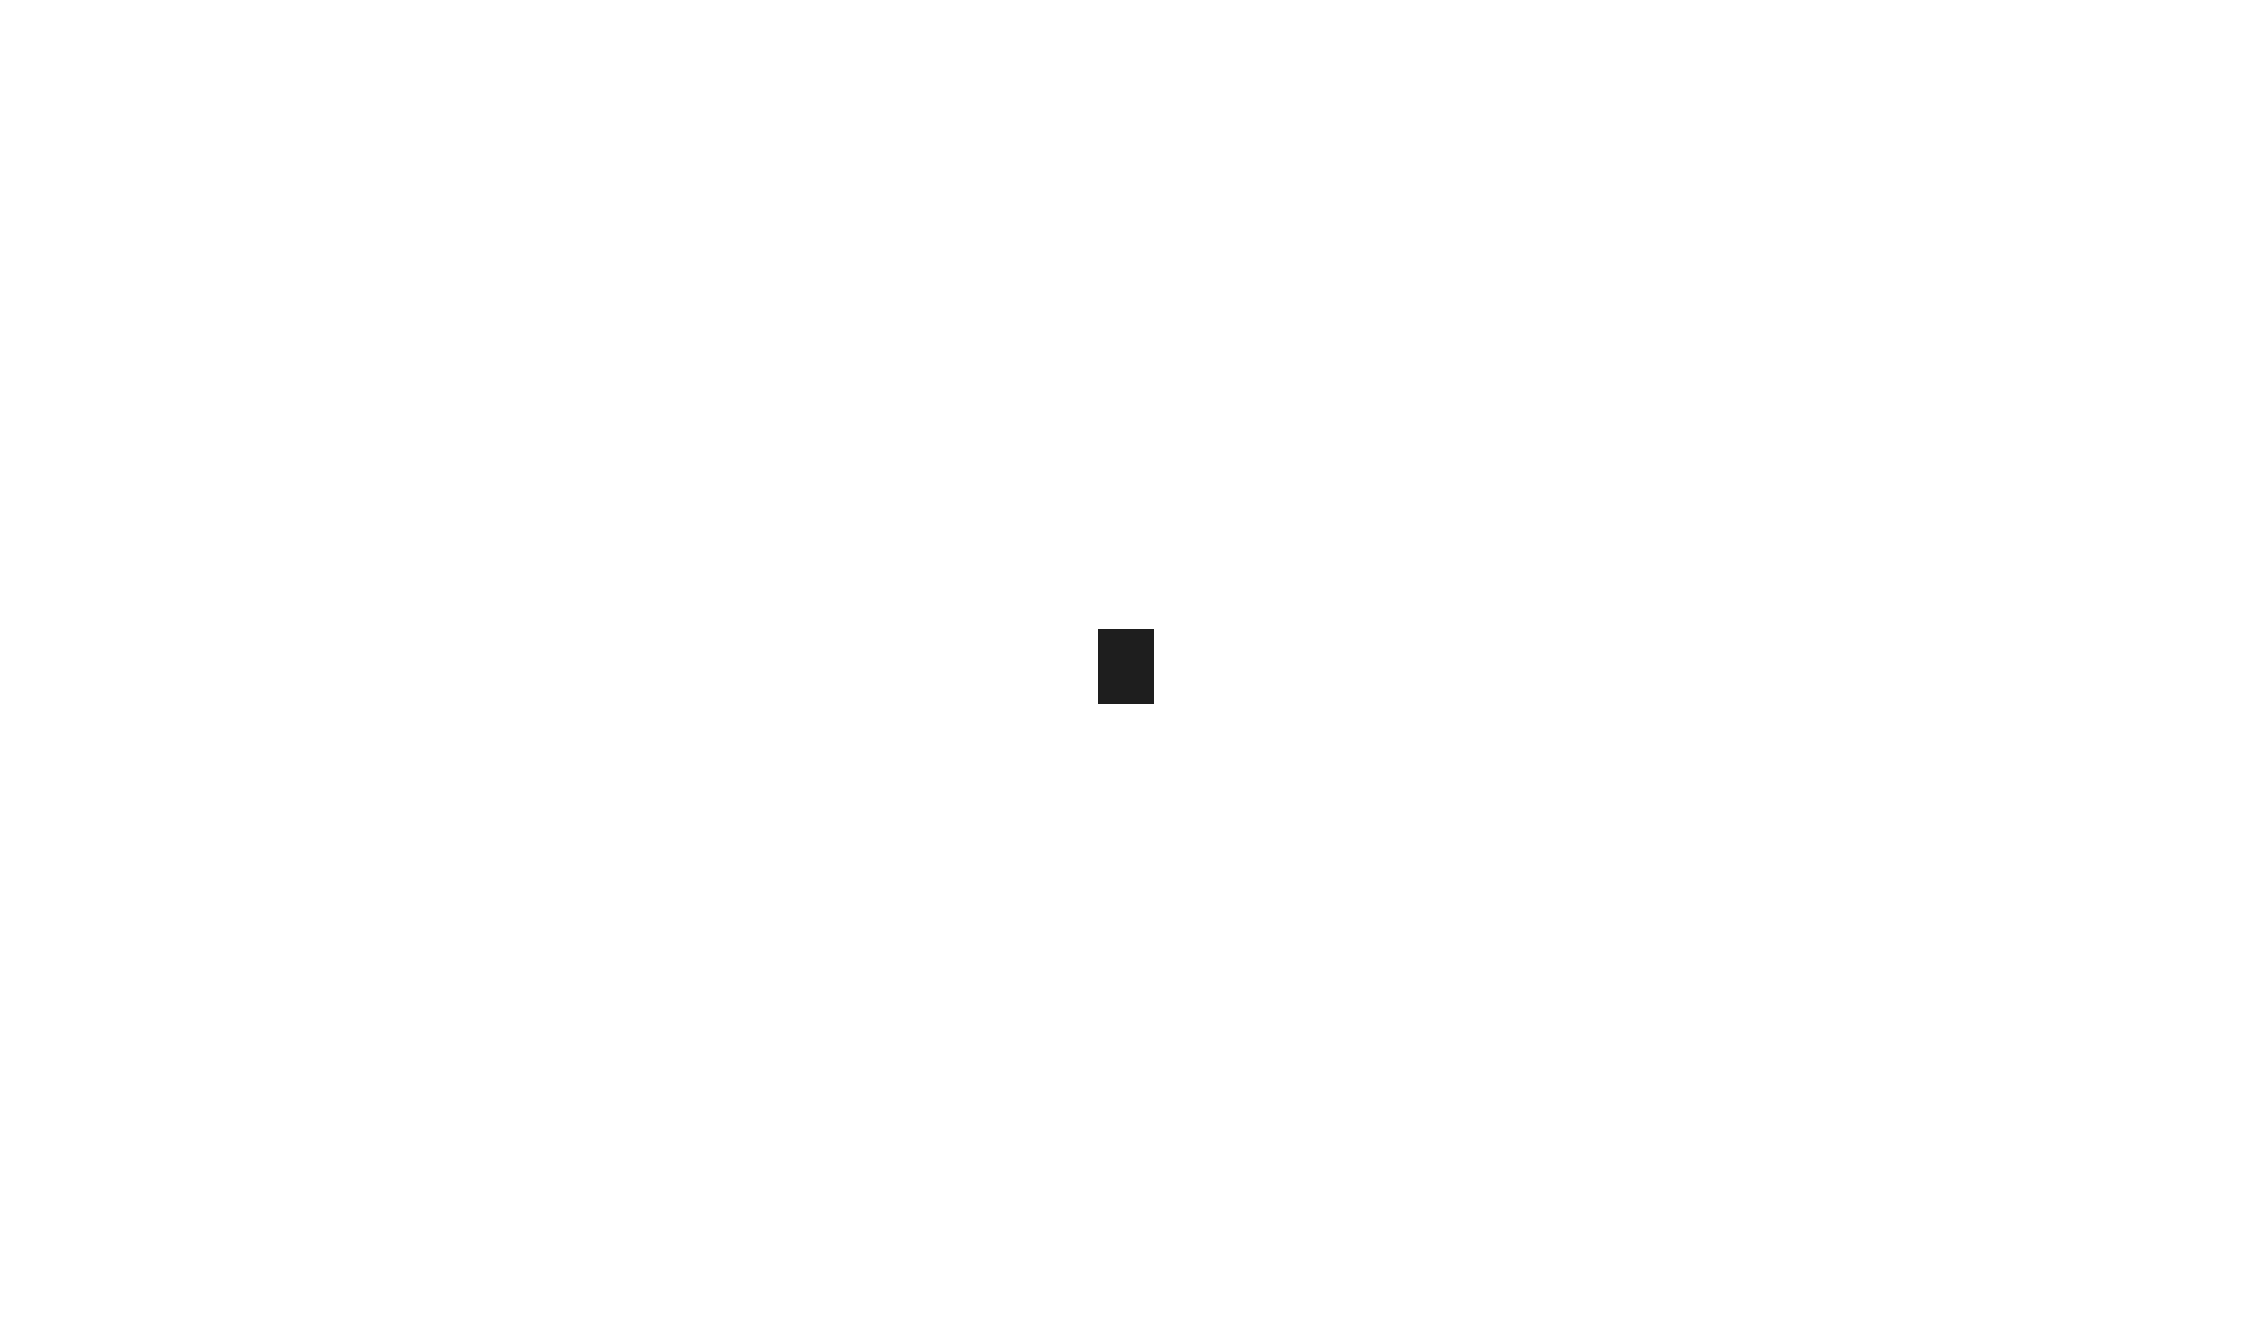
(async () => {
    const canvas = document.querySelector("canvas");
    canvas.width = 2250;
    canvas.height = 1332;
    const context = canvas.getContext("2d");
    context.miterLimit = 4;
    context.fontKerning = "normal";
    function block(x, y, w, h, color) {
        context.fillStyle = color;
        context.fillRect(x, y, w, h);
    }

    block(0, 0, 2250, 1332, "rgb(255, 255, 255)");
    block(1098, 629, 56, 75, "rgb(30, 30, 30)");
})();
